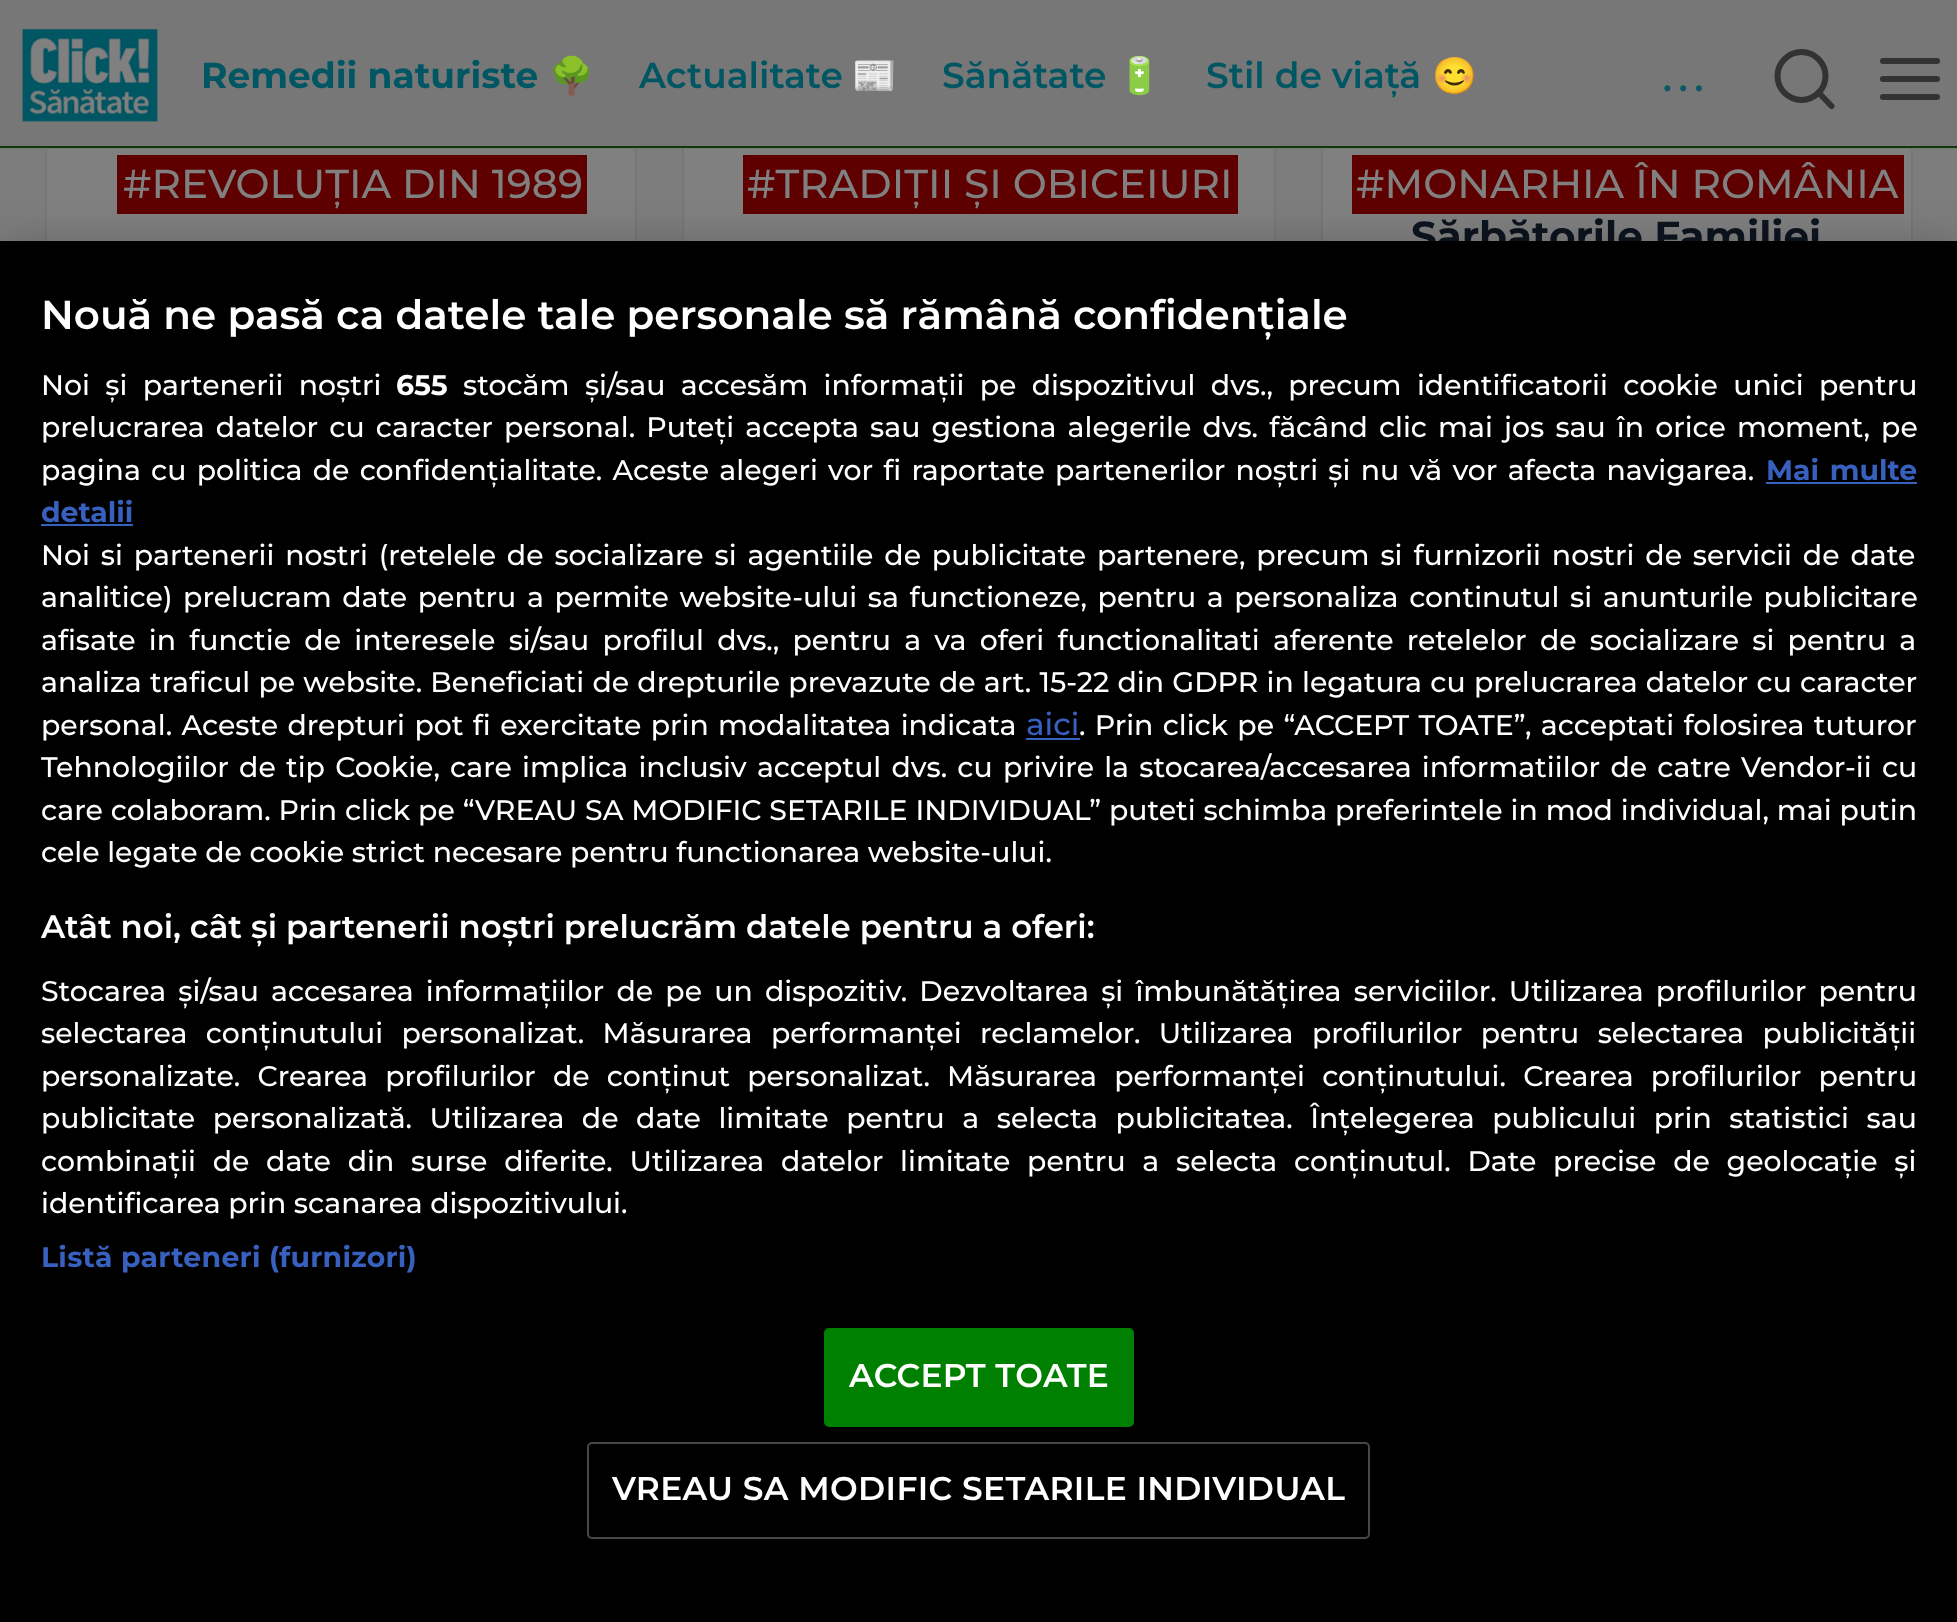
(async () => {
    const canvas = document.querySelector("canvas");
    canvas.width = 1957;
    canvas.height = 1622;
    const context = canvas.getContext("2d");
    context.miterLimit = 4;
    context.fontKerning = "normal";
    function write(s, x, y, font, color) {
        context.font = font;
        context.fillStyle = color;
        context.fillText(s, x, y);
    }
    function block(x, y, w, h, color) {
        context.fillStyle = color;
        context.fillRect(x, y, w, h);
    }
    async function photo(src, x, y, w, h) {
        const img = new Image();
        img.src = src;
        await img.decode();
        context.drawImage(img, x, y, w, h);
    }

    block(0, 0, 1957, 1622, "rgb(125, 125, 125)");
    block(47, 149, 588, 92, "rgb(128, 128, 128)");
    context.strokeStyle = "rgb(119, 119, 119)";
    context.lineWidth = 2;
    context.strokeRect(46, 127, 590, 219);
    block(684, 149, 590, 92, "rgb(128, 128, 128)");
    context.strokeRect(683, 127, 592, 219);
    block(1323, 149, 588, 92, "rgb(128, 128, 128)");
    context.strokeRect(1322, 127, 590, 219);
    block(0, 0, 1957, 149, "rgb(119, 119, 119)");
    block(0, 146, 1957, 2, "rgb(15, 59, 10)");
    await photo("media/1.png", 22, 29, 136, 93);
    write("Remedii naturiste", 201, 88, "bold 36px Montserrat", "rgb(0, 86, 99)");
    write("🌳", 549, 88, "bold 36px Noto Color Emoji", "rgb(0, 86, 99)");
    write("Actualitate", 639, 88, "600 36px Montserrat", "rgb(0, 86, 99)");
    write("📰", 852, 88, "bold 36px Noto Color Emoji", "rgb(0, 86, 99)");
    write("Sănătate", 942, 88, "600 36px Montserrat", "rgb(0, 86, 99)");
    write("🔋", 1117, 88, "bold 36px Noto Color Emoji", "rgb(0, 86, 99)");
    write("Stil de viață", 1206, 88, "600 36px Montserrat", "rgb(0, 86, 99)");
    write("😊", 1432, 88, "bold 36px Noto Color Emoji", "rgb(0, 86, 99)");
    context.letterSpacing = "7px";
    write("...", 1663, 91, "600 36px Montserrat", "rgb(12, 89, 101)");
    context.beginPath();
    context.arc(1801.5, 76, 24, 0, Math.PI * 2);
    context.strokeStyle = "rgb(51, 51, 51)";
    context.lineWidth = 6;
    context.stroke();
    context.beginPath();
    context.moveTo(1831.5, 106);
    context.lineTo(1818.5, 92.5);
    context.lineCap = "round";
    context.lineJoin = "round";
    context.stroke();
    context.beginPath();
    context.moveTo(1883, 79);
    context.lineTo(1937, 79);
    context.moveTo(1883, 61);
    context.lineTo(1937, 61);
    context.moveTo(1883, 97);
    context.lineTo(1937, 97);
    context.stroke();
    block(117, 155, 470, 59, "rgb(94, 0, 0)");
    context.letterSpacing = "0px";
    write("#REVOLUȚIA DIN 1989", 123, 198, "500 40.5px Montserrat", "rgb(128, 128, 128)");
    block(743, 155, 495, 59, "rgb(94, 0, 0)");
    write("#TRADIȚII ȘI OBICEIURI", 747, 198, "500 40.5px Montserrat", "rgb(128, 128, 128)");
    block(1352, 155, 552, 59, "rgb(94, 0, 0)");
    write("#MONARHIA ÎN ROMÂNIA", 1356, 198, "500 40.5px Montserrat", "rgb(128, 128, 128)");
    write("Sărbătorile Familiei", 1411, 250, "bold 40.5px Montserrat", "rgb(12, 20, 30)");
    context.fillStyle = "rgba(0, 0, 0, 0.2)";
    context.filter = "blur(20px)";
    context.beginPath();
    context.rect(0, 241, 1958, 1381);
    context.fill();
    context.filter = "none";
    block(0, 241, 1957, 1381, "rgb(0, 0, 0)");
    write("Nouă ne pasă ca datele tale personale să rămână confidențiale", 41, 329, "600 40.5px Montserrat", "rgb(255, 255, 255)");
    context.wordSpacing = "7.75px";
    write("Noi și partenerii noștri", 41, 395, "500 28.35px Montserrat", "rgb(255, 255, 255)");
    context.wordSpacing = "0px";
    write("655", 396, 395, "bold 28.35px Montserrat", "rgb(255, 255, 255)");
    context.wordSpacing = "7.75px";
    write("stocăm și/sau accesăm informații pe dispozitivul dvs., precum identificatorii cookie unici pentru", 463, 395, "500 28.35px Montserrat", "rgb(255, 255, 255)");
    context.wordSpacing = "3.5px";
    write("prelucrarea datelor cu caracter personal. Puteți accepta sau gestiona alegerile dvs. făcând clic mai jos sau în orice moment, pe", 41, 437, "500 28.35px Montserrat", "rgb(255, 255, 255)");
    context.wordSpacing = "2.6px";
    write("pagina cu politica de confidențialitate. Aceste alegeri vor fi raportate partenerilor noștri și nu vă vor afecta navigarea.", 41, 480, "500 28.35px Montserrat", "rgb(255, 255, 255)");
    write("Mai multe", 1766, 480, "bold 28.35px Montserrat", "rgb(56, 96, 190)");
    block(1766, 482, 151, 2, "rgb(56, 96, 190)");
    context.wordSpacing = "0px";
    write("detalii", 41, 522, "bold 28.35px Montserrat", "rgb(56, 96, 190)");
    block(41, 524, 92, 2, "rgb(56, 96, 190)");
    context.wordSpacing = "3.25px";
    write("Noi si partenerii nostri (retelele de socializare si agentiile de publicitate partenere, precum si furnizorii nostri de servicii de date", 41, 565, "500 28.35px Montserrat", "rgb(255, 255, 255)");
    context.wordSpacing = "3px";
    write("analitice) prelucram date pentru a permite website-ului sa functioneze, pentru a personaliza continutul si anunturile publicitare", 41, 607, "500 28.35px Montserrat", "rgb(255, 255, 255)");
    context.wordSpacing = "5.6px";
    write("afisate in functie de interesele si/sau profilul dvs., pentru a va oferi functionalitati aferente retelelor de socializare si pentru a", 41, 650, "500 28.35px Montserrat", "rgb(255, 255, 255)");
    context.wordSpacing = "0.6px";
    write("analiza traficul pe website. Beneficiati de drepturile prevazute de art. 15-22 din GDPR in legatura cu prelucrarea datelor cu caracter", 41, 692, "500 28.35px Montserrat", "rgb(255, 255, 255)");
    context.wordSpacing = "1.75px";
    write("personal. Aceste drepturi pot fi exercitate prin modalitatea indicata", 41, 735, "500 28.35px Montserrat", "rgb(255, 255, 255)");
    context.wordSpacing = "0px";
    write("aici", 1026, 735, "500 31px Montserrat", "rgb(56, 96, 190)");
    block(1026, 738, 54, 2, "rgb(56, 96, 190)");
    context.wordSpacing = "1.75px";
    write(". Prin click pe “ACCEPT TOATE”, acceptati folosirea tuturor", 1079, 735, "500 28.35px Montserrat", "rgb(255, 255, 255)");
    context.save();
    context.beginPath();
    context.rect(41, 290, 1876, 1013);
    context.clip();
    context.wordSpacing = "2.6px";
    write("Tehnologiilor de tip Cookie, care implica inclusiv acceptul dvs. cu privire la stocarea/accesarea informatiilor de catre Vendor-ii cu", 41, 777, "500 28.35px Montserrat", "rgb(255, 255, 255)");
    context.restore();
    context.wordSpacing = "0.3px";
    write("care colaboram. Prin click pe “VREAU SA MODIFIC SETARILE INDIVIDUAL” puteti schimba preferintele in mod individual, mai putin", 41, 820, "500 28.35px Montserrat", "rgb(255, 255, 255)");
    context.wordSpacing = "0px";
    write("cele legate de cookie strict necesare pentru functionarea website-ului.", 41, 862, "500 28.35px Montserrat", "rgb(255, 255, 255)");
    write("Atât noi, cât și partenerii noștri prelucrăm datele pentru a oferi:", 41, 938, "600 32.4px Montserrat", "rgb(255, 255, 255)");
    context.wordSpacing = "4.6px";
    write("Stocarea și/sau accesarea informațiilor de pe un dispozitiv. Dezvoltarea și îmbunătățirea serviciilor. Utilizarea profilurilor pentru", 41, 1001, "500 28.35px Montserrat", "rgb(255, 255, 255)");
    context.wordSpacing = "10.75px";
    write("selectarea conținutului personalizat. Măsurarea performanței reclamelor. Utilizarea profilurilor pentru selectarea publicității", 41, 1043, "500 28.35px Montserrat", "rgb(255, 255, 255)");
    context.wordSpacing = "9.6px";
    write("personalizate. Crearea profilurilor de conținut personalizat. Măsurarea performanței conținutului. Crearea profilurilor pentru", 41, 1086, "500 28.35px Montserrat", "rgb(255, 255, 255)");
    context.wordSpacing = "9.9px";
    write("publicitate personalizată. Utilizarea de date limitate pentru a selecta publicitatea. Înțelegerea publicului prin statistici sau", 41, 1128, "500 28.35px Montserrat", "rgb(255, 255, 255)");
    context.wordSpacing = "9.1px";
    write("combinații de date din surse diferite. Utilizarea datelor limitate pentru a selecta conținutul. Date precise de geolocație și", 41, 1171, "500 28.35px Montserrat", "rgb(255, 255, 255)");
    context.wordSpacing = "0px";
    write("identificarea prin scanarea dispozitivului.", 41, 1213, "500 28.35px Montserrat", "rgb(255, 255, 255)");
    context.letterSpacing = "0.25px";
    write("Listă parteneri (furnizori)", 41, 1267, "bold 28.35px Montserrat", "rgb(56, 96, 190)");
    context.fillStyle = "rgb(0, 128, 0)";
    context.beginPath();
    context.roundRect(825, 1329, 308, 97, 4);
    context.fill();
    context.strokeStyle = "rgb(0, 128, 0)";
    context.lineWidth = 2;
    context.lineJoin = "miter";
    context.stroke();
    context.letterSpacing = "0.35px";
    write("ACCEPT TOATE", 849, 1387, "600 32.9px Montserrat", "rgb(255, 255, 255)");
    context.beginPath();
    context.roundRect(588, 1443, 781, 95, 4);
    context.strokeStyle = "rgb(71, 71, 71)";
    context.stroke();
    write("VREAU SA MODIFIC SETARILE INDIVIDUAL", 612, 1500, "600 32.9px Montserrat", "rgb(255, 255, 255)");
})();
